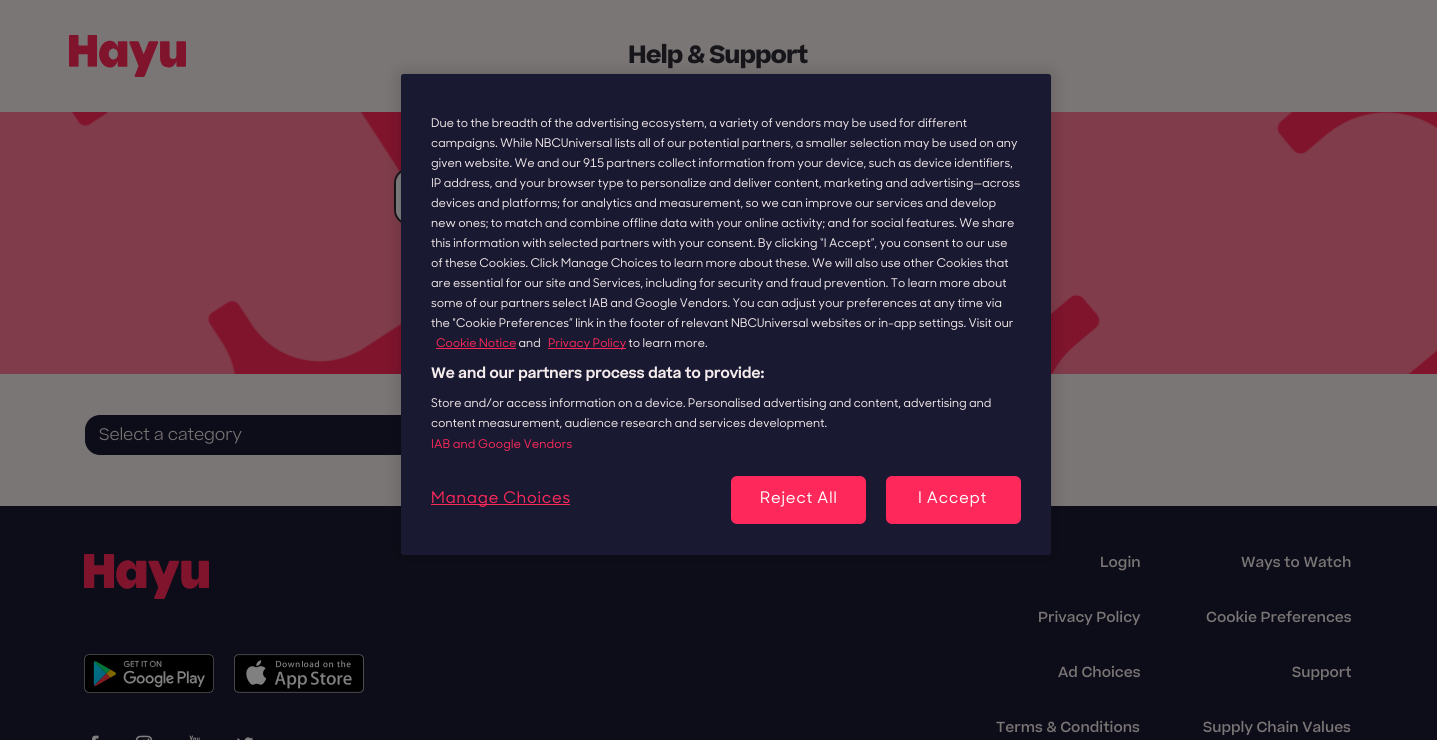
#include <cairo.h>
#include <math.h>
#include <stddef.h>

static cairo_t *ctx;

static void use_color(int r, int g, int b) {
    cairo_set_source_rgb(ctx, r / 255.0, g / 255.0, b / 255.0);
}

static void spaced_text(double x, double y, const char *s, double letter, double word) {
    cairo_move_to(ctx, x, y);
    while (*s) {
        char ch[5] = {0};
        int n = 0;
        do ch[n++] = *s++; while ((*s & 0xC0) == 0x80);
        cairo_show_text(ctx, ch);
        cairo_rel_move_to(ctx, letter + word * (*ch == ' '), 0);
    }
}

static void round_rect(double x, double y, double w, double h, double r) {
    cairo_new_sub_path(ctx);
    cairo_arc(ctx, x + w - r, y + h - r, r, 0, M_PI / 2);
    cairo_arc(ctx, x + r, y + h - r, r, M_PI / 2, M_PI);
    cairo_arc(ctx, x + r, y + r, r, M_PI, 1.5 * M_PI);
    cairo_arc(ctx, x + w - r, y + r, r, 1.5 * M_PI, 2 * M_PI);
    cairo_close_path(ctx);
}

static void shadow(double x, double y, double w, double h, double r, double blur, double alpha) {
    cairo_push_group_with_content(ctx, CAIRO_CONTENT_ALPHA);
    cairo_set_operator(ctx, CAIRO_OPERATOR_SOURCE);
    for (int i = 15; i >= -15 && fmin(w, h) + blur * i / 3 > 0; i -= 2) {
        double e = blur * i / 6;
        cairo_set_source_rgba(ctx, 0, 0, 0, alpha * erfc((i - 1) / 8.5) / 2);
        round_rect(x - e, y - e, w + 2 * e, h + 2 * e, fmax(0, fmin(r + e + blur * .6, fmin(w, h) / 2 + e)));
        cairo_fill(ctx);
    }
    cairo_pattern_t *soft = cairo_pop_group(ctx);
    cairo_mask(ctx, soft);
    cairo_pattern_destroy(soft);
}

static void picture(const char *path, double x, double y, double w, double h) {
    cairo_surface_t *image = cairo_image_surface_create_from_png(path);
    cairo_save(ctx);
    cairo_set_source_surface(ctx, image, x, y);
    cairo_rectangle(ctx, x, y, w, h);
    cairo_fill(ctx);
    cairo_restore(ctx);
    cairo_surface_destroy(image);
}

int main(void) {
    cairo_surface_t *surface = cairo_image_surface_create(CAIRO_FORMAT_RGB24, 1437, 740);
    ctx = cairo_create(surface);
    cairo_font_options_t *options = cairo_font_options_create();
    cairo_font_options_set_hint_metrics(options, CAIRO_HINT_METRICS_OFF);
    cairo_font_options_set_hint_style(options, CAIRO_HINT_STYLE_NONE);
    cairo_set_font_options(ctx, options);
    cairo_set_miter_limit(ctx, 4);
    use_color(123, 118, 118);
    cairo_paint(ctx);
    picture("img1.png", 69, 35, 117, 42);
    cairo_select_font_face(ctx, "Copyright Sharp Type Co", CAIRO_FONT_SLANT_NORMAL, CAIRO_FONT_WEIGHT_BOLD);
    cairo_set_font_size(ctx, 24);
    use_color(22, 21, 25);
    spaced_text(628, 63, "Help & Support", -1, 0);
    picture("img2.png", 0, 112, 1437, 262);
    round_rect(395, 169, 648, 55, 14);
    cairo_stroke(ctx);
    use_color(128, 128, 128);
    cairo_new_path(ctx);
    cairo_move_to(ctx, 409, 170);
    cairo_line_to(ctx, 1004, 170);
    cairo_line_to(ctx, 1004, 223);
    cairo_line_to(ctx, 409, 223);
    cairo_curve_to(ctx, 402, 223, 396, 217, 396, 210);
    cairo_line_to(ctx, 396, 183);
    cairo_curve_to(ctx, 396, 176, 402, 170, 409, 170);
    cairo_close_path(ctx);
    cairo_fill(ctx);
    use_color(13, 13, 25);
    round_rect(85, 415, 425, 40, 15);
    cairo_fill(ctx);
    cairo_select_font_face(ctx, "Copyright Sharp Type Co Light", CAIRO_FONT_SLANT_NORMAL, CAIRO_FONT_WEIGHT_NORMAL);
    cairo_set_font_size(ctx, 16);
    use_color(123, 118, 118);
    spaced_text(99, 440, "Select a category", -0.1, 0);
    use_color(13, 13, 25);
    cairo_rectangle(ctx, 0, 506, 1437, 234);
    cairo_fill(ctx);
    picture("img3.png", 84, 554, 125, 45);
    picture("img4.png", 84, 654, 130, 39);
    picture("img5.png", 234, 654, 130, 39);
    picture("img6.png", 92, 735, 7, 5);
    picture("img7.png", 135, 735, 18, 5);
    picture("img8.png", 189, 735, 11, 5);
    picture("img9.png", 237, 737, 17, 3);
    cairo_select_font_face(ctx, "Copyright Sharp Type Co Medium", CAIRO_FONT_SLANT_NORMAL, CAIRO_FONT_WEIGHT_NORMAL);
    cairo_set_font_size(ctx, 14);
    use_color(123, 118, 118);
    cairo_move_to(ctx, 1100, 567);
    cairo_show_text(ctx, "Login");
    cairo_move_to(ctx, 1038, 622);
    cairo_show_text(ctx, "Privacy Policy");
    cairo_move_to(ctx, 1058, 677);
    cairo_show_text(ctx, "Ad Choices");
    cairo_move_to(ctx, 996, 732);
    cairo_show_text(ctx, "Terms & Conditions");
    cairo_move_to(ctx, 1241, 567);
    cairo_show_text(ctx, "Ways to Watch");
    cairo_move_to(ctx, 1206, 622);
    cairo_show_text(ctx, "Cookie Preferences");
    cairo_move_to(ctx, 1292, 677);
    cairo_show_text(ctx, "Support");
    cairo_move_to(ctx, 1203, 732);
    cairo_show_text(ctx, "Supply Chain Values");
    use_color(0, 0, 0);
    shadow(401, 74, 650, 481, 2.5, 9, 0.2);
    use_color(25, 25, 50);
    round_rect(401, 74, 650, 481, 2.5);
    cairo_fill(ctx);
    picture("img10.png", 431, 118, 536, 12);
    picture("img11.png", 431, 138, 587, 12);
    picture("img12.png", 431, 158, 150, 12);
    picture("img13.png", 583, 158, 21, 10);
    picture("img14.png", 607, 158, 405, 12);
    picture("img15.png", 431, 178, 589, 12);
    picture("img16.png", 431, 198, 565, 12);
    picture("img17.png", 431, 218, 583, 12);
    picture("img18.png", 431, 238, 576, 12);
    picture("img19.png", 431, 258, 577, 12);
    picture("img20.png", 431, 278, 575, 12);
    picture("img21.png", 431, 298, 571, 12);
    picture("img22.png", 431, 318, 582, 12);
    picture("img23.png", 436, 338, 80, 10);
    use_color(255, 40, 90);
    cairo_rectangle(ctx, 436, 348, 80, 1);
    cairo_fill(ctx);
    picture("img24.png", 519, 338, 21, 10);
    cairo_rectangle(ctx, 548, 348, 78, 1);
    cairo_fill(ctx);
    picture("img25.png", 548, 338, 78, 12);
    picture("img26.png", 628, 338, 79, 10);
    cairo_select_font_face(ctx, "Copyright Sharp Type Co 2", CAIRO_FONT_SLANT_NORMAL, CAIRO_FONT_WEIGHT_BOLD);
    use_color(245, 235, 235);
    cairo_move_to(ctx, 431, 378);
    cairo_show_text(ctx, "We and our partners process data to provide:");
    picture("img27.png", 431, 398, 560, 12);
    picture("img28.png", 431, 418, 396, 12);
    picture("img29.png", 431, 439, 141, 12);
    use_color(255, 40, 90);
    cairo_rectangle(ctx, 431, 504, 139, 1);
    cairo_fill(ctx);
    picture("img30.png", 432, 491, 138, 16);
    round_rect(731, 476, 135, 48, 6);
    cairo_fill(ctx);
    picture("img31.png", 761, 491, 75, 16);
    round_rect(886, 476, 135, 48, 6);
    cairo_fill(ctx);
    picture("img32.png", 919, 491, 67, 16);
    cairo_surface_write_to_png(surface, "result.png");
    cairo_font_options_destroy(options);
    cairo_destroy(ctx);
    cairo_surface_destroy(surface);
    return 0;
}
